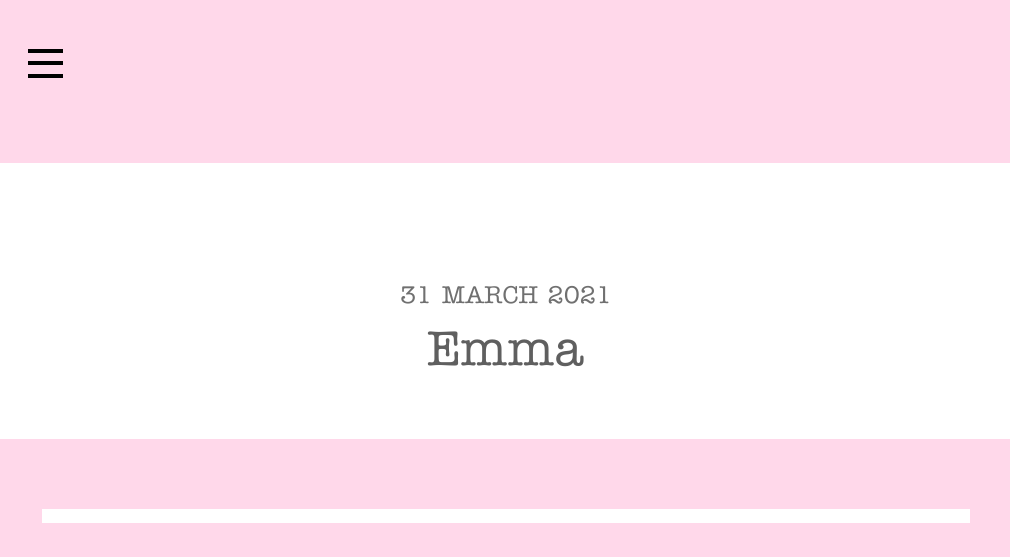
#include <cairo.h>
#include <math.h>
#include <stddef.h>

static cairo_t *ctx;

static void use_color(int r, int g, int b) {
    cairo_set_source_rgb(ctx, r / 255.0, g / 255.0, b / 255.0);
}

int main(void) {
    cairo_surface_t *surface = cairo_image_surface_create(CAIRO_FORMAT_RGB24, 1010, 557);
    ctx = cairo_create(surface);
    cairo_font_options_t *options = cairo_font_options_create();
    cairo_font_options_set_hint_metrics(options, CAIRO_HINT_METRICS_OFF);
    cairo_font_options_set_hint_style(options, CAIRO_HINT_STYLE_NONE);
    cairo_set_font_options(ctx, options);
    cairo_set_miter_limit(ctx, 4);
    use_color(255, 255, 255);
    cairo_paint(ctx);
    use_color(255, 216, 234);
    cairo_rectangle(ctx, 0, 0, 1010, 163);
    cairo_fill(ctx);
    use_color(0, 0, 0);
    cairo_rectangle(ctx, 28, 74, 35, 4);
    cairo_fill(ctx);
    cairo_rectangle(ctx, 28, 49, 35, 4);
    cairo_fill(ctx);
    cairo_rectangle(ctx, 28, 61, 35, 4);
    cairo_fill(ctx);
    cairo_select_font_face(ctx, "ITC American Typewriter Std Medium", CAIRO_FONT_SLANT_NORMAL, CAIRO_FONT_WEIGHT_NORMAL);
    cairo_set_font_size(ctx, 24.5);
    use_color(112, 112, 112);
    cairo_move_to(ctx, 400, 303);
    cairo_show_text(ctx, "31 MARCH 2021");
    cairo_set_font_size(ctx, 49);
    use_color(95, 95, 95);
    cairo_move_to(ctx, 427, 365);
    cairo_show_text(ctx, "Emma");
    use_color(255, 216, 234);
    cairo_rectangle(ctx, 0, 439, 1010, 118);
    cairo_fill(ctx);
    use_color(255, 255, 255);
    cairo_rectangle(ctx, 42, 509, 928, 14);
    cairo_fill(ctx);
    cairo_surface_write_to_png(surface, "result.png");
    cairo_font_options_destroy(options);
    cairo_destroy(ctx);
    cairo_surface_destroy(surface);
    return 0;
}
